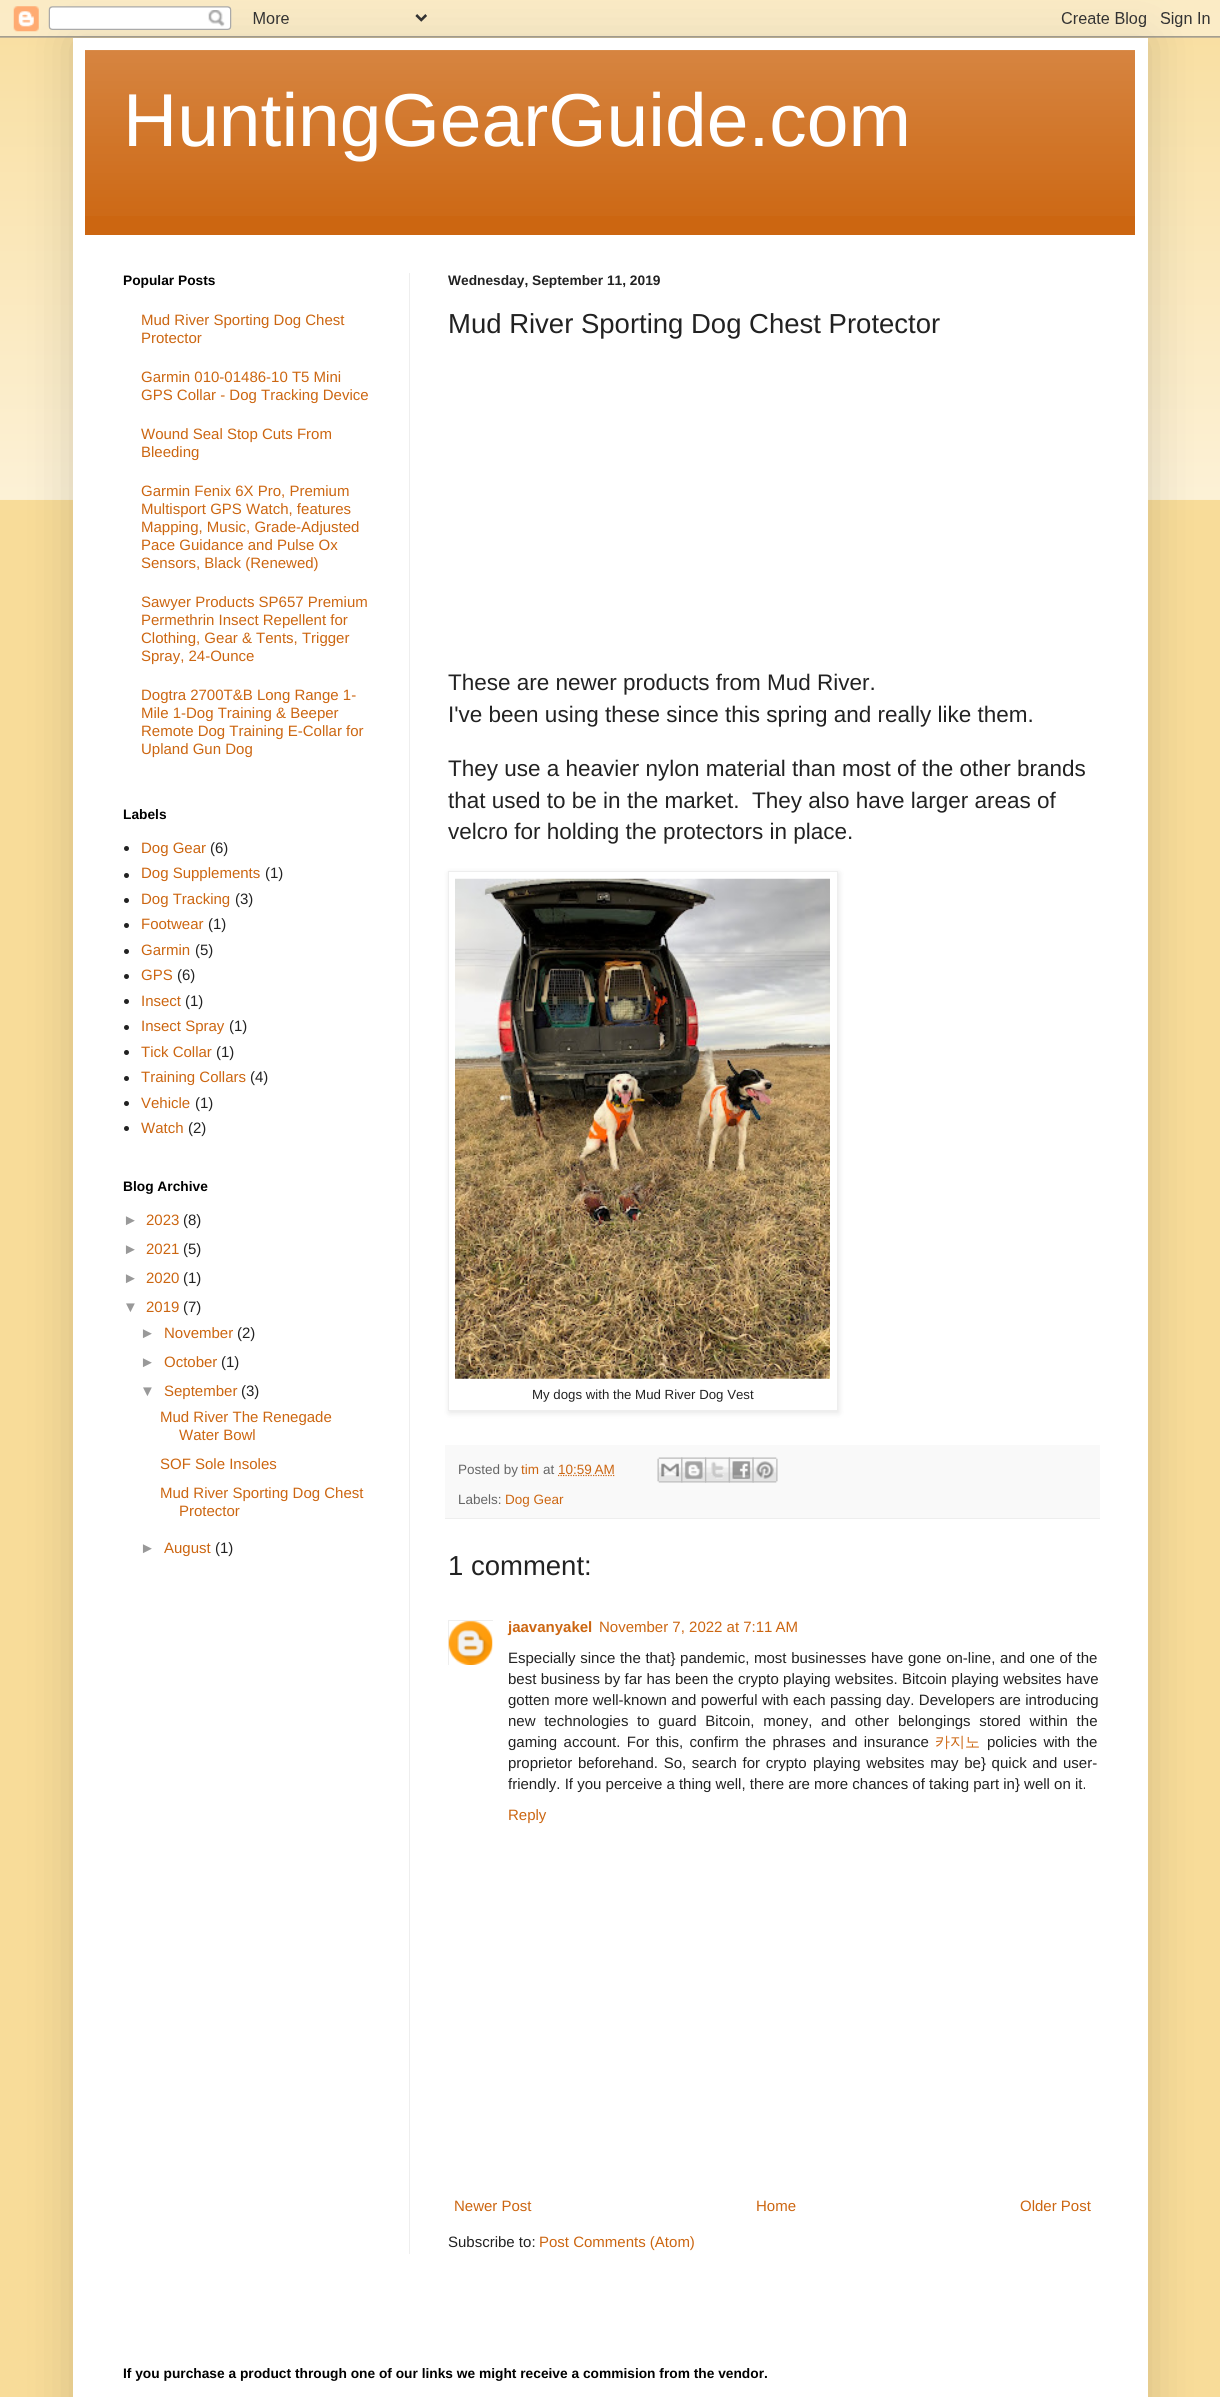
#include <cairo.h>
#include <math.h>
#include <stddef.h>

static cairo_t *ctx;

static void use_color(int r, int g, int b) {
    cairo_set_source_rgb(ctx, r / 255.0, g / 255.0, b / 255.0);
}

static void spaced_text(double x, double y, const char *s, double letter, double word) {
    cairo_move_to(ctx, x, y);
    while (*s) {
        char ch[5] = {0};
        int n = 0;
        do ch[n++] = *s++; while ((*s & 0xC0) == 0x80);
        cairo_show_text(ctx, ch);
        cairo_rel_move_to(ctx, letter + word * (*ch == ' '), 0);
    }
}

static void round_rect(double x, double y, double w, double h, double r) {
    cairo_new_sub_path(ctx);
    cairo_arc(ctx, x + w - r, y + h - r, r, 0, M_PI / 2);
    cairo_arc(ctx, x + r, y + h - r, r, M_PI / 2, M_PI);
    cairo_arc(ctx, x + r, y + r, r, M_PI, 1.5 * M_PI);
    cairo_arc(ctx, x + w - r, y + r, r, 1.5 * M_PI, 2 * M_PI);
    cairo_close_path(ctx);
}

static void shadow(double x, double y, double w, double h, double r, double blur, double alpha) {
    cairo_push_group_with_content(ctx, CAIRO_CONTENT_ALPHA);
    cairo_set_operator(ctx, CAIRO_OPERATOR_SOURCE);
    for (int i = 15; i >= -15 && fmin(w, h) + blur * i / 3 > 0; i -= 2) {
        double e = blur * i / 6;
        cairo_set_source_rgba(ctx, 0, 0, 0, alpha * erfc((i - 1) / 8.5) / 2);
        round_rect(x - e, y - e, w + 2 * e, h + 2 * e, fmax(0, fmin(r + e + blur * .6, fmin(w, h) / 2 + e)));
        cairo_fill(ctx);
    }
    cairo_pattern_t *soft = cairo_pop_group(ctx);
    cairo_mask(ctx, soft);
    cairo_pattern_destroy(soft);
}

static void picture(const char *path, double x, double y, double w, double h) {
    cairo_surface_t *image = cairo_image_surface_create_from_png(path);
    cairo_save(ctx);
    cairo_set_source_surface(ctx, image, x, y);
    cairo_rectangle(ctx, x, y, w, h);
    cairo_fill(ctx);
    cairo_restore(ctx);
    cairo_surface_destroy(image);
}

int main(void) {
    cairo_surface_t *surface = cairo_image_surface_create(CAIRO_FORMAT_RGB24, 1220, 2397);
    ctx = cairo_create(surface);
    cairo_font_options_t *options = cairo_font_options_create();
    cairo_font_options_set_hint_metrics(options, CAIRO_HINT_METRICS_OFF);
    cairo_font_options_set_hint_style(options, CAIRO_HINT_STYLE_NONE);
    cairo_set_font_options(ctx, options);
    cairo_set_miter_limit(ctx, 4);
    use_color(248, 220, 153);
    cairo_paint(ctx);
    picture("img1.png", 0, 0, 1220, 500);
    use_color(0, 0, 0);
    shadow(73, 38, 1075, 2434, 0, 25, 0.15);
    picture("img2.png", 0, 0, 1220, 38);
    use_color(255, 255, 255);
    cairo_rectangle(ctx, 73, 38, 1075, 2359);
    cairo_fill(ctx);
    use_color(204, 102, 17);
    cairo_rectangle(ctx, 85, 50, 1050, 185);
    cairo_fill(ctx);
    picture("img3.png", 85, 50, 1050, 166);
    cairo_select_font_face(ctx, "Liberation Sans", CAIRO_FONT_SLANT_NORMAL, CAIRO_FONT_WEIGHT_NORMAL);
    cairo_set_font_size(ctx, 75);
    use_color(255, 255, 255);
    cairo_move_to(ctx, 123, 146);
    cairo_show_text(ctx, "HuntingGearGuide.com");
    use_color(238, 238, 238);
    cairo_rectangle(ctx, 409, 273, 1, 1981);
    cairo_fill(ctx);
    cairo_select_font_face(ctx, "Liberation Sans", CAIRO_FONT_SLANT_NORMAL, CAIRO_FONT_WEIGHT_BOLD);
    cairo_set_font_size(ctx, 13.75);
    use_color(0, 0, 0);
    cairo_move_to(ctx, 123, 285);
    cairo_show_text(ctx, "Popular Posts");
    cairo_select_font_face(ctx, "Liberation Sans", CAIRO_FONT_SLANT_NORMAL, CAIRO_FONT_WEIGHT_NORMAL);
    cairo_set_font_size(ctx, 15);
    use_color(204, 102, 17);
    cairo_move_to(ctx, 141, 325);
    cairo_show_text(ctx, "Mud River Sporting Dog Chest");
    cairo_move_to(ctx, 141, 343);
    cairo_show_text(ctx, "Protector");
    cairo_move_to(ctx, 141, 382);
    cairo_show_text(ctx, "Garmin 010-01486-10 T5 Mini");
    cairo_move_to(ctx, 141, 400);
    cairo_show_text(ctx, "GPS Collar - Dog Tracking Device");
    cairo_move_to(ctx, 141, 439);
    cairo_show_text(ctx, "Wound Seal Stop Cuts From");
    cairo_move_to(ctx, 141, 457);
    cairo_show_text(ctx, "Bleeding");
    cairo_move_to(ctx, 141, 496);
    cairo_show_text(ctx, "Garmin Fenix 6X Pro, Premium");
    cairo_move_to(ctx, 141, 514);
    cairo_show_text(ctx, "Multisport GPS Watch, features");
    cairo_move_to(ctx, 141, 532);
    cairo_show_text(ctx, "Mapping, Music, Grade-Adjusted");
    cairo_move_to(ctx, 141, 550);
    cairo_show_text(ctx, "Pace Guidance and Pulse Ox");
    cairo_move_to(ctx, 141, 568);
    cairo_show_text(ctx, "Sensors, Black (Renewed)");
    cairo_move_to(ctx, 141, 607);
    cairo_show_text(ctx, "Sawyer Products SP657 Premium");
    cairo_move_to(ctx, 141, 625);
    cairo_show_text(ctx, "Permethrin Insect Repellent for");
    cairo_move_to(ctx, 141, 643);
    cairo_show_text(ctx, "Clothing, Gear & Tents, Trigger");
    cairo_move_to(ctx, 141, 661);
    cairo_show_text(ctx, "Spray, 24-Ounce");
    cairo_move_to(ctx, 141, 700);
    cairo_show_text(ctx, "Dogtra 2700T&B Long Range 1-");
    cairo_move_to(ctx, 141, 718);
    cairo_show_text(ctx, "Mile 1-Dog Training & Beeper");
    cairo_move_to(ctx, 141, 736);
    cairo_show_text(ctx, "Remote Dog Training E-Collar for");
    cairo_move_to(ctx, 141, 754);
    cairo_show_text(ctx, "Upland Gun Dog");
    cairo_select_font_face(ctx, "Liberation Sans", CAIRO_FONT_SLANT_NORMAL, CAIRO_FONT_WEIGHT_BOLD);
    cairo_set_font_size(ctx, 13.75);
    use_color(0, 0, 0);
    cairo_move_to(ctx, 123, 819);
    cairo_show_text(ctx, "Labels");
    use_color(34, 34, 34);
    cairo_new_path(ctx);
    cairo_arc(ctx, 126.5, 848.5, 2.5, 0, 2 * M_PI);
    cairo_fill(ctx);
    cairo_select_font_face(ctx, "Liberation Sans", CAIRO_FONT_SLANT_NORMAL, CAIRO_FONT_WEIGHT_NORMAL);
    cairo_set_font_size(ctx, 15);
    use_color(204, 102, 17);
    cairo_move_to(ctx, 141, 853);
    cairo_show_text(ctx, "Dog Gear");
    use_color(34, 34, 34);
    cairo_move_to(ctx, 210, 853);
    cairo_show_text(ctx, "(6)");
    cairo_new_path(ctx);
    cairo_arc(ctx, 126.5, 875.5, 2.5, 0, 2 * M_PI);
    cairo_fill(ctx);
    use_color(204, 102, 17);
    cairo_move_to(ctx, 141, 878);
    cairo_show_text(ctx, "Dog Supplements");
    use_color(34, 34, 34);
    cairo_move_to(ctx, 265, 878);
    cairo_show_text(ctx, "(1)");
    cairo_new_path(ctx);
    cairo_arc(ctx, 126.5, 900.5, 2.5, 0, 2 * M_PI);
    cairo_fill(ctx);
    use_color(204, 102, 17);
    cairo_move_to(ctx, 141, 904);
    cairo_show_text(ctx, "Dog Tracking");
    use_color(34, 34, 34);
    cairo_move_to(ctx, 235, 904);
    cairo_show_text(ctx, "(3)");
    cairo_new_path(ctx);
    cairo_arc(ctx, 126.5, 925.5, 2.5, 0, 2 * M_PI);
    cairo_fill(ctx);
    use_color(204, 102, 17);
    cairo_move_to(ctx, 141, 929);
    cairo_show_text(ctx, "Footwear");
    use_color(34, 34, 34);
    cairo_move_to(ctx, 208, 929);
    cairo_show_text(ctx, "(1)");
    cairo_new_path(ctx);
    cairo_arc(ctx, 126.5, 951.5, 2.5, 0, 2 * M_PI);
    cairo_fill(ctx);
    use_color(204, 102, 17);
    cairo_move_to(ctx, 141, 955);
    cairo_show_text(ctx, "Garmin");
    use_color(34, 34, 34);
    cairo_move_to(ctx, 195, 955);
    cairo_show_text(ctx, "(5)");
    cairo_new_path(ctx);
    cairo_arc(ctx, 126.5, 976.5, 2.5, 0, 2 * M_PI);
    cairo_fill(ctx);
    use_color(204, 102, 17);
    cairo_move_to(ctx, 141, 980);
    cairo_show_text(ctx, "GPS");
    use_color(34, 34, 34);
    cairo_move_to(ctx, 177, 980);
    cairo_show_text(ctx, "(6)");
    cairo_new_path(ctx);
    cairo_arc(ctx, 126.5, 1001.5, 2.5, 0, 2 * M_PI);
    cairo_fill(ctx);
    use_color(204, 102, 17);
    cairo_move_to(ctx, 141, 1006);
    cairo_show_text(ctx, "Insect");
    use_color(34, 34, 34);
    cairo_move_to(ctx, 185, 1006);
    cairo_show_text(ctx, "(1)");
    cairo_new_path(ctx);
    cairo_arc(ctx, 126.5, 1027.5, 2.5, 0, 2 * M_PI);
    cairo_fill(ctx);
    use_color(204, 102, 17);
    cairo_move_to(ctx, 141, 1031);
    cairo_show_text(ctx, "Insect Spray");
    use_color(34, 34, 34);
    cairo_move_to(ctx, 229, 1031);
    cairo_show_text(ctx, "(1)");
    cairo_new_path(ctx);
    cairo_arc(ctx, 126.5, 1052.5, 2.5, 0, 2 * M_PI);
    cairo_fill(ctx);
    use_color(204, 102, 17);
    cairo_move_to(ctx, 141, 1057);
    cairo_show_text(ctx, "Tick Collar");
    use_color(34, 34, 34);
    cairo_move_to(ctx, 216, 1057);
    cairo_show_text(ctx, "(1)");
    cairo_new_path(ctx);
    cairo_arc(ctx, 126.5, 1078.5, 2.5, 0, 2 * M_PI);
    cairo_fill(ctx);
    use_color(204, 102, 17);
    cairo_move_to(ctx, 141, 1082);
    cairo_show_text(ctx, "Training Collars");
    use_color(34, 34, 34);
    cairo_move_to(ctx, 250, 1082);
    cairo_show_text(ctx, "(4)");
    cairo_new_path(ctx);
    cairo_arc(ctx, 126.5, 1103.5, 2.5, 0, 2 * M_PI);
    cairo_fill(ctx);
    use_color(204, 102, 17);
    cairo_move_to(ctx, 141, 1108);
    cairo_show_text(ctx, "Vehicle");
    use_color(34, 34, 34);
    cairo_move_to(ctx, 195, 1108);
    cairo_show_text(ctx, "(1)");
    cairo_new_path(ctx);
    cairo_arc(ctx, 126.5, 1128.5, 2.5, 0, 2 * M_PI);
    cairo_fill(ctx);
    use_color(204, 102, 17);
    cairo_move_to(ctx, 141, 1133);
    cairo_show_text(ctx, "Watch");
    use_color(34, 34, 34);
    cairo_move_to(ctx, 188, 1133);
    cairo_show_text(ctx, "(2)");
    cairo_select_font_face(ctx, "Liberation Sans", CAIRO_FONT_SLANT_NORMAL, CAIRO_FONT_WEIGHT_BOLD);
    cairo_set_font_size(ctx, 13.75);
    use_color(0, 0, 0);
    cairo_move_to(ctx, 123, 1191);
    cairo_show_text(ctx, "Blog Archive");
    cairo_select_font_face(ctx, "Liberation Sans", CAIRO_FONT_SLANT_NORMAL, CAIRO_FONT_WEIGHT_NORMAL);
    cairo_set_font_size(ctx, 15);
    use_color(153, 153, 153);
    cairo_move_to(ctx, 123, 1225);
    cairo_show_text(ctx, "►");
    use_color(204, 102, 17);
    cairo_move_to(ctx, 146, 1225);
    cairo_show_text(ctx, "2023");
    use_color(34, 34, 34);
    cairo_move_to(ctx, 183, 1225);
    cairo_show_text(ctx, "(8)");
    use_color(153, 153, 153);
    cairo_move_to(ctx, 123, 1254);
    cairo_show_text(ctx, "►");
    use_color(204, 102, 17);
    cairo_move_to(ctx, 146, 1254);
    cairo_show_text(ctx, "2021");
    use_color(34, 34, 34);
    cairo_move_to(ctx, 183, 1254);
    cairo_show_text(ctx, "(5)");
    use_color(153, 153, 153);
    cairo_move_to(ctx, 123, 1283);
    cairo_show_text(ctx, "►");
    use_color(204, 102, 17);
    cairo_move_to(ctx, 146, 1283);
    cairo_show_text(ctx, "2020");
    use_color(34, 34, 34);
    cairo_move_to(ctx, 183, 1283);
    cairo_show_text(ctx, "(1)");
    use_color(153, 153, 153);
    cairo_move_to(ctx, 123, 1312);
    cairo_show_text(ctx, "▼");
    use_color(204, 102, 17);
    cairo_move_to(ctx, 146, 1312);
    cairo_show_text(ctx, "2019");
    use_color(34, 34, 34);
    cairo_move_to(ctx, 183, 1312);
    cairo_show_text(ctx, "(7)");
    use_color(153, 153, 153);
    cairo_move_to(ctx, 140, 1338);
    cairo_show_text(ctx, "►");
    use_color(204, 102, 17);
    cairo_move_to(ctx, 164, 1338);
    cairo_show_text(ctx, "November");
    use_color(34, 34, 34);
    cairo_move_to(ctx, 237, 1338);
    cairo_show_text(ctx, "(2)");
    use_color(153, 153, 153);
    cairo_move_to(ctx, 140, 1367);
    cairo_show_text(ctx, "►");
    use_color(204, 102, 17);
    cairo_move_to(ctx, 164, 1367);
    cairo_show_text(ctx, "October");
    use_color(34, 34, 34);
    cairo_move_to(ctx, 221, 1367);
    cairo_show_text(ctx, "(1)");
    use_color(153, 153, 153);
    cairo_move_to(ctx, 140, 1396);
    cairo_show_text(ctx, "▼");
    use_color(204, 102, 17);
    cairo_move_to(ctx, 164, 1396);
    cairo_show_text(ctx, "September");
    use_color(34, 34, 34);
    cairo_move_to(ctx, 241, 1396);
    cairo_show_text(ctx, "(3)");
    use_color(204, 102, 17);
    cairo_move_to(ctx, 160, 1422);
    cairo_show_text(ctx, "Mud River The Renegade");
    cairo_move_to(ctx, 179, 1440);
    cairo_show_text(ctx, "Water Bowl");
    cairo_move_to(ctx, 160, 1469);
    cairo_show_text(ctx, "SOF Sole Insoles");
    cairo_move_to(ctx, 160, 1498);
    cairo_show_text(ctx, "Mud River Sporting Dog Chest");
    cairo_move_to(ctx, 179, 1516);
    cairo_show_text(ctx, "Protector");
    use_color(153, 153, 153);
    cairo_move_to(ctx, 140, 1553);
    cairo_show_text(ctx, "►");
    use_color(204, 102, 17);
    cairo_move_to(ctx, 164, 1553);
    cairo_show_text(ctx, "August");
    use_color(34, 34, 34);
    cairo_move_to(ctx, 215, 1553);
    cairo_show_text(ctx, "(1)");
    cairo_select_font_face(ctx, "Liberation Sans", CAIRO_FONT_SLANT_NORMAL, CAIRO_FONT_WEIGHT_BOLD);
    cairo_set_font_size(ctx, 13.75);
    cairo_move_to(ctx, 448, 285);
    cairo_show_text(ctx, "Wednesday, September 11, 2019");
    cairo_select_font_face(ctx, "Liberation Sans", CAIRO_FONT_SLANT_NORMAL, CAIRO_FONT_WEIGHT_NORMAL);
    cairo_set_font_size(ctx, 27.5);
    cairo_move_to(ctx, 448, 333);
    cairo_show_text(ctx, "Mud River Sporting Dog Chest Protector");
    cairo_set_font_size(ctx, 22.5);
    cairo_move_to(ctx, 448, 690);
    cairo_show_text(ctx, "These are newer products from Mud River.");
    cairo_move_to(ctx, 448, 722);
    cairo_show_text(ctx, "I've been using these since this spring and really like them.");
    cairo_move_to(ctx, 448, 776);
    cairo_show_text(ctx, "They use a heavier nylon material than most of the other brands");
    cairo_move_to(ctx, 448, 808);
    cairo_show_text(ctx, "that used to be in the market.  They also have larger areas of");
    cairo_move_to(ctx, 448, 839);
    cairo_show_text(ctx, "velcro for holding the protectors in place.");
    use_color(0, 0, 0);
    shadow(449, 873, 390, 540, 0, 3, 0.1);
    use_color(255, 255, 255);
    cairo_rectangle(ctx, 448.5, 871.5, 389, 539);
    cairo_fill_preserve(ctx);
    use_color(238, 238, 238);
    cairo_set_line_width(ctx, 1);
    cairo_stroke(ctx);
    picture("img4.png", 455, 878, 375, 501);
    cairo_set_font_size(ctx, 13.25);
    use_color(34, 34, 34);
    cairo_move_to(ctx, 532, 1399);
    cairo_show_text(ctx, "My dogs with the Mud River Dog Vest");
    use_color(249, 249, 249);
    cairo_rectangle(ctx, 445, 1445, 655, 73);
    cairo_fill(ctx);
    use_color(238, 238, 238);
    cairo_rectangle(ctx, 445, 1518, 655, 1);
    cairo_fill(ctx);
    cairo_set_font_size(ctx, 13.5);
    use_color(102, 102, 102);
    cairo_move_to(ctx, 458, 1474);
    cairo_show_text(ctx, "Posted by");
    use_color(204, 102, 17);
    cairo_move_to(ctx, 521, 1474);
    cairo_show_text(ctx, "tim");
    use_color(102, 102, 102);
    cairo_move_to(ctx, 543, 1474);
    cairo_show_text(ctx, "at");
    cairo_new_path(ctx);
    cairo_move_to(ctx, 558, 1475.5);
    cairo_line_to(ctx, 615, 1475.5);
    use_color(204, 102, 17);
    cairo_set_line_width(ctx, 1.2);
    cairo_set_dash(ctx, (double[]){1.25, 1.25}, 2, 0);
    cairo_stroke(ctx);
    cairo_move_to(ctx, 558, 1474);
    cairo_show_text(ctx, "10:59 AM");
    picture("img5.png", 657, 1457, 26, 26);
    picture("img6.png", 681, 1457, 26, 26);
    picture("img7.png", 705, 1457, 25, 26);
    picture("img8.png", 728, 1457, 26, 26);
    picture("img9.png", 752, 1457, 26, 26);
    use_color(102, 102, 102);
    cairo_move_to(ctx, 458, 1504);
    cairo_show_text(ctx, "Labels:");
    use_color(204, 102, 17);
    cairo_move_to(ctx, 505, 1504);
    cairo_show_text(ctx, "Dog Gear");
    cairo_set_font_size(ctx, 27.5);
    use_color(34, 34, 34);
    cairo_move_to(ctx, 448, 1575);
    cairo_show_text(ctx, "1 comment:");
    cairo_save(ctx);
    cairo_rectangle(ctx, 448, 1620, 45, 45);
    cairo_clip(ctx);
    cairo_rectangle(ctx, 448.5, 1620.5, 45, 45);
    use_color(238, 238, 238);
    cairo_set_line_width(ctx, 1);
    cairo_set_dash(ctx, NULL, 0, 0);
    cairo_stroke(ctx);
    cairo_restore(ctx);
    picture("img10.png", 448, 1621, 45, 44);
    cairo_select_font_face(ctx, "Liberation Sans", CAIRO_FONT_SLANT_NORMAL, CAIRO_FONT_WEIGHT_BOLD);
    cairo_set_font_size(ctx, 15);
    use_color(204, 102, 17);
    cairo_move_to(ctx, 508, 1632);
    cairo_show_text(ctx, "jaavanyakel");
    cairo_select_font_face(ctx, "Liberation Sans", CAIRO_FONT_SLANT_NORMAL, CAIRO_FONT_WEIGHT_NORMAL);
    cairo_move_to(ctx, 599, 1632);
    cairo_show_text(ctx, "November 7, 2022 at 7:11 AM");
    use_color(34, 34, 34);
    spaced_text(508, 1663, "Especially since the that} pandemic, most businesses have gone on-line, and one of the", 0, 0.5);
    spaced_text(508, 1684, "best business by far has been the crypto playing websites. Bitcoin playing websites have", 0, 0.2);
    spaced_text(508, 1705, "gotten more well-known and powerful with each passing day. Developers are introducing", 0, 0.25);
    spaced_text(508, 1726, "new technologies to guard Bitcoin, money, and other", 0, 4.5);
    spaced_text(898, 1726, "belongings stored within the", 0, 4.5);
    spaced_text(508, 1747, "gaming account. For this, confirm the phrases and insurance", 0, 2.25);
    cairo_select_font_face(ctx, "WenQuanYi Zen Hei Medium", CAIRO_FONT_SLANT_NORMAL, CAIRO_FONT_WEIGHT_NORMAL);
    use_color(204, 102, 17);
    cairo_move_to(ctx, 935, 1747);
    cairo_show_text(ctx, "카지노");
    cairo_select_font_face(ctx, "Liberation Sans", CAIRO_FONT_SLANT_NORMAL, CAIRO_FONT_WEIGHT_NORMAL);
    use_color(34, 34, 34);
    spaced_text(987, 1747, "policies with the", 0, 2.25);
    spaced_text(508, 1768, "proprietor beforehand. So, search for crypto", 0, 1.5);
    spaced_text(813, 1768, "playing websites may be} quick and user-", 0, 1.5);
    cairo_move_to(ctx, 508, 1789);
    cairo_show_text(ctx, "friendly. If you perceive a thing well, there are more chances of taking part in} well on it.");
    use_color(204, 102, 17);
    cairo_move_to(ctx, 508, 1820);
    cairo_show_text(ctx, "Reply");
    cairo_move_to(ctx, 454, 2211);
    cairo_show_text(ctx, "Newer Post");
    cairo_move_to(ctx, 756, 2211);
    cairo_show_text(ctx, "Home");
    cairo_move_to(ctx, 1020, 2211);
    cairo_show_text(ctx, "Older Post");
    use_color(34, 34, 34);
    cairo_move_to(ctx, 448, 2247);
    cairo_show_text(ctx, "Subscribe to:");
    use_color(204, 102, 17);
    cairo_move_to(ctx, 539, 2247);
    cairo_show_text(ctx, "Post Comments (Atom)");
    cairo_select_font_face(ctx, "Liberation Sans", CAIRO_FONT_SLANT_NORMAL, CAIRO_FONT_WEIGHT_BOLD);
    cairo_set_font_size(ctx, 13.75);
    use_color(0, 0, 0);
    cairo_move_to(ctx, 123, 2378);
    cairo_show_text(ctx, "If you purchase a product through one of our links we might receive a commision from the vendor.");
    cairo_surface_write_to_png(surface, "result.png");
    cairo_font_options_destroy(options);
    cairo_destroy(ctx);
    cairo_surface_destroy(surface);
    return 0;
}
